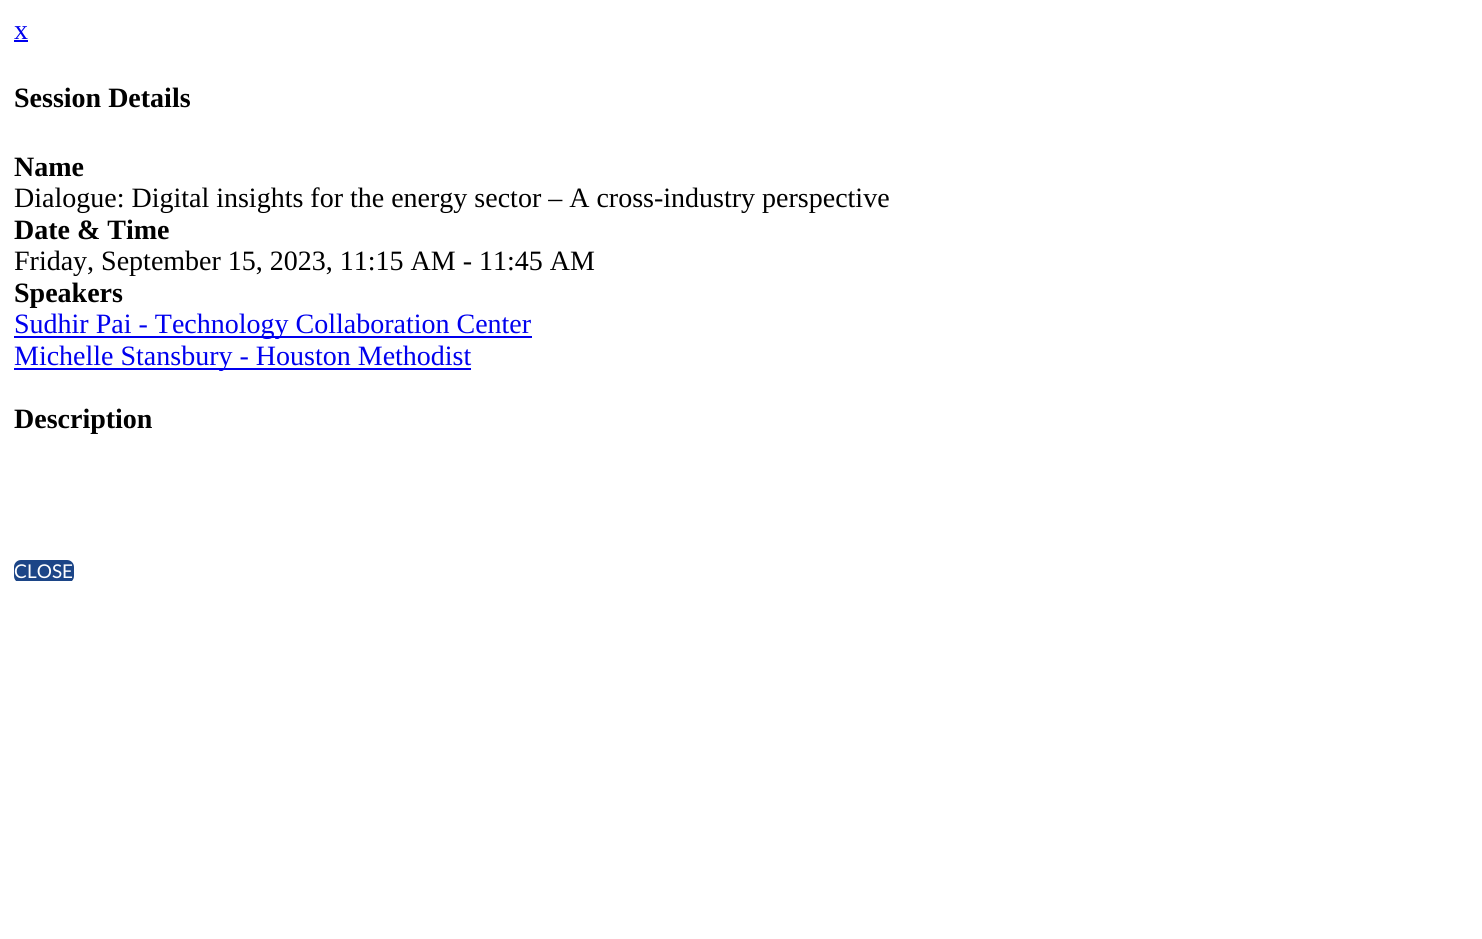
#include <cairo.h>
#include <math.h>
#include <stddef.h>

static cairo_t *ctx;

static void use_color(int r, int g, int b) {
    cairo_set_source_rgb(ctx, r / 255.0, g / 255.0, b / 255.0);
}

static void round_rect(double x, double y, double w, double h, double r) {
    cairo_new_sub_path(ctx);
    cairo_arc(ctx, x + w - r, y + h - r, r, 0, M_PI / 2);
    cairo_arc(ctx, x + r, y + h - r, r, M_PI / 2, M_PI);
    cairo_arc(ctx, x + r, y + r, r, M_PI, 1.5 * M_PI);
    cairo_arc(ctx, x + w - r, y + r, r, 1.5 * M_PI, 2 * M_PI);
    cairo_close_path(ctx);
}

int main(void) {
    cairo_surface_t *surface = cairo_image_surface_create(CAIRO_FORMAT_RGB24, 1482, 939);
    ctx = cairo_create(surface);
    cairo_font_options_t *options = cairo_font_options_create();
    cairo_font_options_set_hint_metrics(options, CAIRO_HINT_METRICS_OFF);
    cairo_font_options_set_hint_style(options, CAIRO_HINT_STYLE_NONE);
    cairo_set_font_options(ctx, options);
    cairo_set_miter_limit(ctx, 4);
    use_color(255, 255, 255);
    cairo_paint(ctx);
    cairo_select_font_face(ctx, "Liberation Serif", CAIRO_FONT_SLANT_NORMAL, CAIRO_FONT_WEIGHT_NORMAL);
    cairo_set_font_size(ctx, 28);
    use_color(0, 0, 238);
    cairo_move_to(ctx, 14, 39);
    cairo_show_text(ctx, "x");
    cairo_rectangle(ctx, 14, 40, 14, 2);
    cairo_fill(ctx);
    cairo_select_font_face(ctx, "Liberation Serif", CAIRO_FONT_SLANT_NORMAL, CAIRO_FONT_WEIGHT_BOLD);
    use_color(0, 0, 0);
    cairo_move_to(ctx, 14, 107);
    cairo_show_text(ctx, "Session Details");
    cairo_move_to(ctx, 14, 176);
    cairo_show_text(ctx, "Name");
    cairo_select_font_face(ctx, "Liberation Serif", CAIRO_FONT_SLANT_NORMAL, CAIRO_FONT_WEIGHT_NORMAL);
    cairo_move_to(ctx, 14, 207);
    cairo_show_text(ctx, "Dialogue: Digital insights for the energy sector – A cross-industry perspective");
    cairo_select_font_face(ctx, "Liberation Serif", CAIRO_FONT_SLANT_NORMAL, CAIRO_FONT_WEIGHT_BOLD);
    cairo_move_to(ctx, 14, 239);
    cairo_show_text(ctx, "Date & Time");
    cairo_select_font_face(ctx, "Liberation Serif", CAIRO_FONT_SLANT_NORMAL, CAIRO_FONT_WEIGHT_NORMAL);
    cairo_move_to(ctx, 14, 270);
    cairo_show_text(ctx, "Friday, September 15, 2023, 11:15 AM - 11:45 AM");
    cairo_select_font_face(ctx, "Liberation Serif", CAIRO_FONT_SLANT_NORMAL, CAIRO_FONT_WEIGHT_BOLD);
    cairo_move_to(ctx, 14, 302);
    cairo_show_text(ctx, "Speakers");
    use_color(0, 0, 238);
    cairo_rectangle(ctx, 14, 336, 518, 2);
    cairo_fill(ctx);
    cairo_select_font_face(ctx, "Liberation Serif", CAIRO_FONT_SLANT_NORMAL, CAIRO_FONT_WEIGHT_NORMAL);
    cairo_move_to(ctx, 14, 333);
    cairo_show_text(ctx, "Sudhir Pai - Technology Collaboration Center");
    cairo_rectangle(ctx, 14, 368, 457, 2);
    cairo_fill(ctx);
    cairo_move_to(ctx, 14, 365);
    cairo_show_text(ctx, "Michelle Stansbury - Houston Methodist");
    cairo_select_font_face(ctx, "Liberation Serif", CAIRO_FONT_SLANT_NORMAL, CAIRO_FONT_WEIGHT_BOLD);
    use_color(0, 0, 0);
    cairo_move_to(ctx, 14, 428);
    cairo_show_text(ctx, "Description");
    use_color(28, 69, 135);
    round_rect(14, 560, 60, 23, 7);
    cairo_fill(ctx);
    cairo_select_font_face(ctx, "Lato", CAIRO_FONT_SLANT_NORMAL, CAIRO_FONT_WEIGHT_NORMAL);
    cairo_set_font_size(ctx, 19);
    use_color(255, 255, 255);
    cairo_move_to(ctx, 14, 578);
    cairo_show_text(ctx, "CLOSE");
    cairo_rectangle(ctx, 14, 581, 60, 2);
    cairo_fill(ctx);
    cairo_surface_write_to_png(surface, "result.png");
    cairo_font_options_destroy(options);
    cairo_destroy(ctx);
    cairo_surface_destroy(surface);
    return 0;
}
